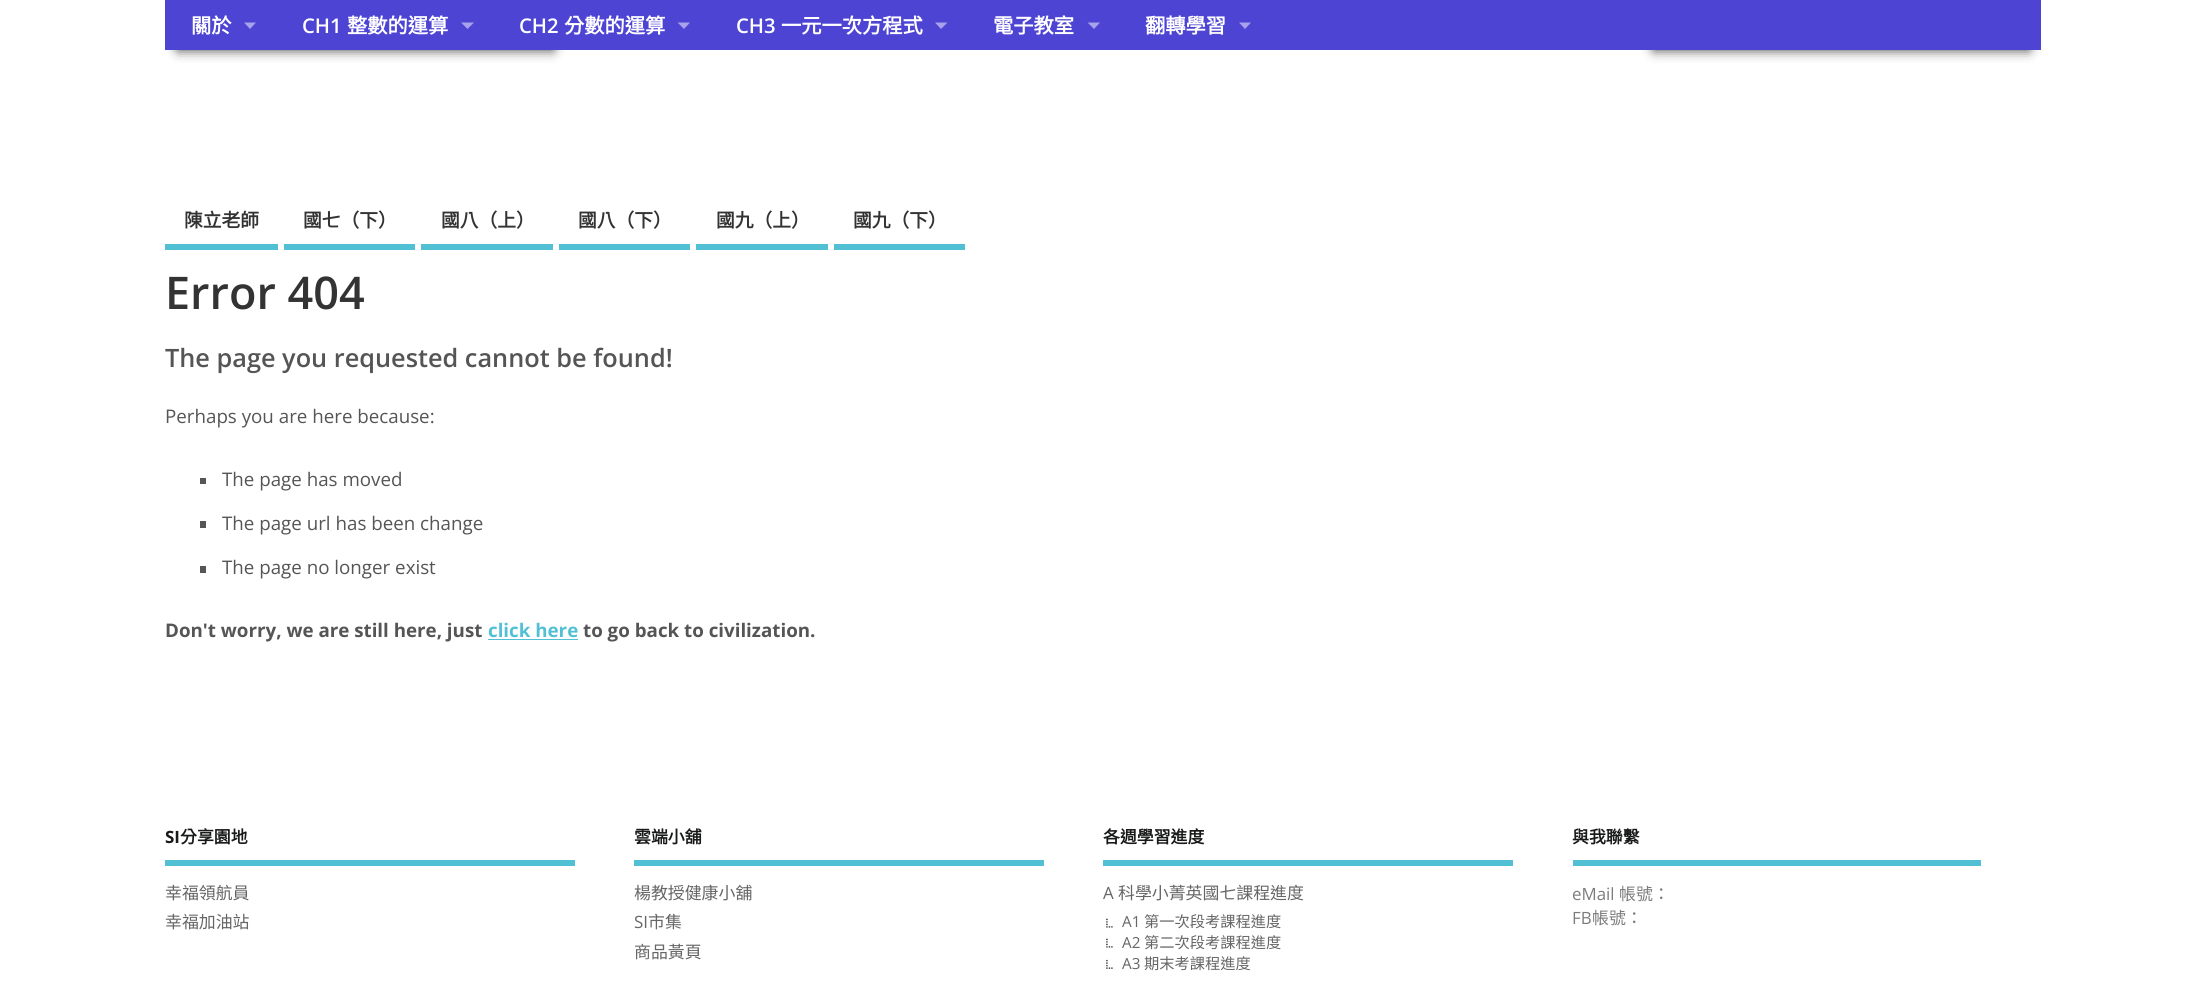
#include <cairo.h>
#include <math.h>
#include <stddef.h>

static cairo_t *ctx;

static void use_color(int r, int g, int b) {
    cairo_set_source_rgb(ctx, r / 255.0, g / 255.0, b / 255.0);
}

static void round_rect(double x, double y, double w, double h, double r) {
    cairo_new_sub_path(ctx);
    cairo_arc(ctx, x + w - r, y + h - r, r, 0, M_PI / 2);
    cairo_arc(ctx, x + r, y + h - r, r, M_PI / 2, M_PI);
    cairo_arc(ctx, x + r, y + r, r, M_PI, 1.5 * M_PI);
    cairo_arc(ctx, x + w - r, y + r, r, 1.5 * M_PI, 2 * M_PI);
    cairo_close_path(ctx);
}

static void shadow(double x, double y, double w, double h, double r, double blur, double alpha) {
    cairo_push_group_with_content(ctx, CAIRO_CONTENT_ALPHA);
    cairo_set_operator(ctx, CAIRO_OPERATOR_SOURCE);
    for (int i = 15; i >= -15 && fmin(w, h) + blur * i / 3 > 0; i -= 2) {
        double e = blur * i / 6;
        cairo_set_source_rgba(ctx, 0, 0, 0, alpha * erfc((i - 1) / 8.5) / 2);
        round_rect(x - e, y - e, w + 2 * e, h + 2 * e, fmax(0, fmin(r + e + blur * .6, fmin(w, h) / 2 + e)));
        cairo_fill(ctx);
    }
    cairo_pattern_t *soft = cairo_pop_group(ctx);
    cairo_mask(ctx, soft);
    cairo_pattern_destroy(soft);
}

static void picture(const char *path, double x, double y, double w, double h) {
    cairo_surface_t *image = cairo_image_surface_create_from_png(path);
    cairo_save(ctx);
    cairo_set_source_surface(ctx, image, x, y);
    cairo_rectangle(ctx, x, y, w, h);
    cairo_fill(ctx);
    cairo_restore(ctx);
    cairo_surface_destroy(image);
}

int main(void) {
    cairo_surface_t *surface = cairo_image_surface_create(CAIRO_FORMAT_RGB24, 2206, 997);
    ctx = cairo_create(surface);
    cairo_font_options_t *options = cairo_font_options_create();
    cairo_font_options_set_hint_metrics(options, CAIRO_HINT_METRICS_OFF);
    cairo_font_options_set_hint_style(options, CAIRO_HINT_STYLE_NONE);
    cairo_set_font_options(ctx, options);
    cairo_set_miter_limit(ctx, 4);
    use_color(255, 255, 255);
    cairo_paint(ctx);
    use_color(0, 0, 0);
    shadow(178, 40, 375, 10, 0, 6, 0.75);
    shadow(1654, 40, 375, 10, 0, 6, 0.75);
    use_color(78, 68, 212);
    cairo_rectangle(ctx, 165, 0, 1876, 50);
    cairo_fill(ctx);
    cairo_select_font_face(ctx, "Noto Sans CJK TC", CAIRO_FONT_SLANT_NORMAL, CAIRO_FONT_WEIGHT_BOLD);
    cairo_set_font_size(ctx, 20.25);
    use_color(255, 255, 255);
    cairo_move_to(ctx, 191, 33);
    cairo_show_text(ctx, "關於");
    use_color(167, 162, 234);
    cairo_new_path(ctx);
    cairo_move_to(ctx, 244, 22.5);
    cairo_line_to(ctx, 256, 22.5);
    cairo_line_to(ctx, 250, 29);
    cairo_close_path(ctx);
    cairo_fill(ctx);
    cairo_select_font_face(ctx, "Open Sans SemiBold", CAIRO_FONT_SLANT_NORMAL, CAIRO_FONT_WEIGHT_NORMAL);
    use_color(255, 255, 255);
    cairo_move_to(ctx, 302, 33);
    cairo_show_text(ctx, "CH1");
    cairo_select_font_face(ctx, "Noto Sans CJK TC", CAIRO_FONT_SLANT_NORMAL, CAIRO_FONT_WEIGHT_BOLD);
    cairo_move_to(ctx, 347, 33);
    cairo_show_text(ctx, "整數的運算");
    use_color(167, 162, 234);
    cairo_new_path(ctx);
    cairo_move_to(ctx, 461, 22.5);
    cairo_line_to(ctx, 474, 22.5);
    cairo_line_to(ctx, 467.5, 29);
    cairo_close_path(ctx);
    cairo_fill(ctx);
    cairo_select_font_face(ctx, "Open Sans SemiBold", CAIRO_FONT_SLANT_NORMAL, CAIRO_FONT_WEIGHT_NORMAL);
    use_color(255, 255, 255);
    cairo_move_to(ctx, 519, 33);
    cairo_show_text(ctx, "CH2");
    cairo_select_font_face(ctx, "Noto Sans CJK TC", CAIRO_FONT_SLANT_NORMAL, CAIRO_FONT_WEIGHT_BOLD);
    cairo_move_to(ctx, 564, 33);
    cairo_show_text(ctx, "分數的運算");
    use_color(167, 162, 234);
    cairo_new_path(ctx);
    cairo_move_to(ctx, 677.5, 22.5);
    cairo_line_to(ctx, 690, 22.5);
    cairo_line_to(ctx, 684, 29);
    cairo_close_path(ctx);
    cairo_fill(ctx);
    cairo_select_font_face(ctx, "Open Sans SemiBold", CAIRO_FONT_SLANT_NORMAL, CAIRO_FONT_WEIGHT_NORMAL);
    use_color(255, 255, 255);
    cairo_move_to(ctx, 736, 33);
    cairo_show_text(ctx, "CH3");
    cairo_select_font_face(ctx, "Noto Sans CJK TC", CAIRO_FONT_SLANT_NORMAL, CAIRO_FONT_WEIGHT_BOLD);
    cairo_move_to(ctx, 781, 33);
    cairo_show_text(ctx, "一元一次方程式");
    use_color(167, 162, 234);
    cairo_new_path(ctx);
    cairo_move_to(ctx, 935, 22.5);
    cairo_line_to(ctx, 947.5, 22.5);
    cairo_line_to(ctx, 941, 29);
    cairo_close_path(ctx);
    cairo_fill(ctx);
    use_color(255, 255, 255);
    cairo_move_to(ctx, 993, 33);
    cairo_show_text(ctx, "電子教室");
    use_color(167, 162, 234);
    cairo_new_path(ctx);
    cairo_move_to(ctx, 1087.5, 22.5);
    cairo_line_to(ctx, 1100, 22.5);
    cairo_line_to(ctx, 1094, 29);
    cairo_close_path(ctx);
    cairo_fill(ctx);
    use_color(255, 255, 255);
    cairo_move_to(ctx, 1145, 33);
    cairo_show_text(ctx, "翻轉學習");
    use_color(167, 162, 234);
    cairo_new_path(ctx);
    cairo_move_to(ctx, 1239, 22.5);
    cairo_line_to(ctx, 1251, 22.5);
    cairo_line_to(ctx, 1245, 29);
    cairo_close_path(ctx);
    cairo_fill(ctx);
    use_color(82, 192, 212);
    cairo_rectangle(ctx, 165, 244, 113, 6);
    cairo_fill(ctx);
    cairo_set_font_size(ctx, 18.75);
    use_color(51, 51, 51);
    cairo_move_to(ctx, 184, 227);
    cairo_show_text(ctx, "陳立老師");
    use_color(82, 192, 212);
    cairo_rectangle(ctx, 284, 244, 131, 6);
    cairo_fill(ctx);
    use_color(51, 51, 51);
    cairo_move_to(ctx, 303, 227);
    cairo_show_text(ctx, "國七（下）");
    use_color(82, 192, 212);
    cairo_rectangle(ctx, 421, 244, 132, 6);
    cairo_fill(ctx);
    use_color(51, 51, 51);
    cairo_move_to(ctx, 441, 227);
    cairo_show_text(ctx, "國八（上）");
    use_color(82, 192, 212);
    cairo_rectangle(ctx, 559, 244, 131, 6);
    cairo_fill(ctx);
    use_color(51, 51, 51);
    cairo_move_to(ctx, 578, 227);
    cairo_show_text(ctx, "國八（下）");
    use_color(82, 192, 212);
    cairo_rectangle(ctx, 696, 244, 132, 6);
    cairo_fill(ctx);
    use_color(51, 51, 51);
    cairo_move_to(ctx, 716, 227);
    cairo_show_text(ctx, "國九（上）");
    use_color(82, 192, 212);
    cairo_rectangle(ctx, 834, 244, 131, 6);
    cairo_fill(ctx);
    use_color(51, 51, 51);
    cairo_move_to(ctx, 853, 227);
    cairo_show_text(ctx, "國九（下）");
    cairo_select_font_face(ctx, "Open Sans SemiBold", CAIRO_FONT_SLANT_NORMAL, CAIRO_FONT_WEIGHT_NORMAL);
    cairo_set_font_size(ctx, 45);
    cairo_move_to(ctx, 165, 309);
    cairo_show_text(ctx, "Error 404");
    cairo_set_font_size(ctx, 25.3);
    use_color(85, 85, 85);
    cairo_move_to(ctx, 165, 367);
    cairo_show_text(ctx, "The page you requested cannot be found!");
    cairo_select_font_face(ctx, "Open Sans", CAIRO_FONT_SLANT_NORMAL, CAIRO_FONT_WEIGHT_NORMAL);
    cairo_set_font_size(ctx, 18.75);
    cairo_move_to(ctx, 165, 423);
    cairo_show_text(ctx, "Perhaps you are here because:");
    cairo_rectangle(ctx, 200, 478, 6, 6);
    cairo_fill(ctx);
    cairo_move_to(ctx, 222, 486);
    cairo_show_text(ctx, "The page has moved");
    cairo_rectangle(ctx, 200, 521, 6, 7);
    cairo_fill(ctx);
    cairo_move_to(ctx, 222, 530);
    cairo_show_text(ctx, "The page url has been change");
    cairo_rectangle(ctx, 200, 566, 6, 7);
    cairo_fill(ctx);
    cairo_move_to(ctx, 222, 574);
    cairo_show_text(ctx, "The page no longer exist");
    cairo_select_font_face(ctx, "Open Sans", CAIRO_FONT_SLANT_NORMAL, CAIRO_FONT_WEIGHT_BOLD);
    cairo_move_to(ctx, 165, 637);
    cairo_show_text(ctx, "Don't worry, we are still here, just");
    use_color(82, 192, 212);
    cairo_move_to(ctx, 488, 637);
    cairo_show_text(ctx, "click here");
    cairo_rectangle(ctx, 488, 639, 90, 1);
    cairo_fill(ctx);
    use_color(85, 85, 85);
    cairo_move_to(ctx, 583, 637);
    cairo_show_text(ctx, "to go back to civilization.");
    use_color(82, 192, 212);
    cairo_rectangle(ctx, 165, 860, 410, 6);
    cairo_fill(ctx);
    cairo_set_font_size(ctx, 16.9);
    use_color(24, 25, 25);
    cairo_move_to(ctx, 165, 843);
    cairo_show_text(ctx, "SI");
    cairo_select_font_face(ctx, "Noto Sans CJK TC", CAIRO_FONT_SLANT_NORMAL, CAIRO_FONT_WEIGHT_BOLD);
    cairo_move_to(ctx, 180, 843);
    cairo_show_text(ctx, "分享園地");
    cairo_select_font_face(ctx, "Noto Sans CJK TC", CAIRO_FONT_SLANT_NORMAL, CAIRO_FONT_WEIGHT_NORMAL);
    use_color(102, 102, 102);
    cairo_move_to(ctx, 165, 899);
    cairo_show_text(ctx, "幸福領航員");
    cairo_move_to(ctx, 165, 928);
    cairo_show_text(ctx, "幸福加油站");
    use_color(82, 192, 212);
    cairo_rectangle(ctx, 634, 860, 410, 6);
    cairo_fill(ctx);
    cairo_select_font_face(ctx, "Noto Sans CJK TC", CAIRO_FONT_SLANT_NORMAL, CAIRO_FONT_WEIGHT_BOLD);
    use_color(24, 25, 25);
    cairo_move_to(ctx, 634, 843);
    cairo_show_text(ctx, "雲端小舖");
    cairo_select_font_face(ctx, "Noto Sans CJK TC", CAIRO_FONT_SLANT_NORMAL, CAIRO_FONT_WEIGHT_NORMAL);
    use_color(102, 102, 102);
    cairo_move_to(ctx, 634, 899);
    cairo_show_text(ctx, "楊教授健康小舖");
    cairo_select_font_face(ctx, "Open Sans", CAIRO_FONT_SLANT_NORMAL, CAIRO_FONT_WEIGHT_NORMAL);
    cairo_move_to(ctx, 634, 928);
    cairo_show_text(ctx, "SI");
    cairo_select_font_face(ctx, "Noto Sans CJK TC", CAIRO_FONT_SLANT_NORMAL, CAIRO_FONT_WEIGHT_NORMAL);
    cairo_move_to(ctx, 648, 928);
    cairo_show_text(ctx, "市集");
    cairo_move_to(ctx, 634, 958);
    cairo_show_text(ctx, "商品黃頁");
    use_color(82, 192, 212);
    cairo_rectangle(ctx, 1103, 860, 410, 6);
    cairo_fill(ctx);
    cairo_select_font_face(ctx, "Noto Sans CJK TC", CAIRO_FONT_SLANT_NORMAL, CAIRO_FONT_WEIGHT_BOLD);
    use_color(24, 25, 25);
    cairo_move_to(ctx, 1103, 843);
    cairo_show_text(ctx, "各週學習進度");
    cairo_select_font_face(ctx, "Open Sans", CAIRO_FONT_SLANT_NORMAL, CAIRO_FONT_WEIGHT_NORMAL);
    use_color(102, 102, 102);
    cairo_move_to(ctx, 1103, 899);
    cairo_show_text(ctx, "A");
    cairo_select_font_face(ctx, "Noto Sans CJK TC", CAIRO_FONT_SLANT_NORMAL, CAIRO_FONT_WEIGHT_NORMAL);
    cairo_move_to(ctx, 1118, 899);
    cairo_show_text(ctx, "科學小菁英國七課程進度");
    picture("img1.png", 1106, 918, 7, 10);
    cairo_select_font_face(ctx, "Open Sans", CAIRO_FONT_SLANT_NORMAL, CAIRO_FONT_WEIGHT_NORMAL);
    cairo_set_font_size(ctx, 15.25);
    cairo_move_to(ctx, 1122, 927);
    cairo_show_text(ctx, "A1");
    cairo_select_font_face(ctx, "Noto Sans CJK TC", CAIRO_FONT_SLANT_NORMAL, CAIRO_FONT_WEIGHT_NORMAL);
    cairo_move_to(ctx, 1144, 927);
    cairo_show_text(ctx, "第一次段考課程進度");
    picture("img1.png", 1106, 938, 7, 10);
    cairo_select_font_face(ctx, "Open Sans", CAIRO_FONT_SLANT_NORMAL, CAIRO_FONT_WEIGHT_NORMAL);
    cairo_move_to(ctx, 1122, 948);
    cairo_show_text(ctx, "A2");
    cairo_select_font_face(ctx, "Noto Sans CJK TC", CAIRO_FONT_SLANT_NORMAL, CAIRO_FONT_WEIGHT_NORMAL);
    cairo_move_to(ctx, 1144, 948);
    cairo_show_text(ctx, "第二次段考課程進度");
    picture("img2.png", 1106, 959, 7, 10);
    cairo_select_font_face(ctx, "Open Sans", CAIRO_FONT_SLANT_NORMAL, CAIRO_FONT_WEIGHT_NORMAL);
    cairo_move_to(ctx, 1122, 969);
    cairo_show_text(ctx, "A3");
    cairo_select_font_face(ctx, "Noto Sans CJK TC", CAIRO_FONT_SLANT_NORMAL, CAIRO_FONT_WEIGHT_NORMAL);
    cairo_move_to(ctx, 1144, 969);
    cairo_show_text(ctx, "期末考課程進度");
    use_color(82, 192, 212);
    cairo_rectangle(ctx, 1573, 860, 408, 6);
    cairo_fill(ctx);
    cairo_select_font_face(ctx, "Noto Sans CJK TC", CAIRO_FONT_SLANT_NORMAL, CAIRO_FONT_WEIGHT_BOLD);
    cairo_set_font_size(ctx, 16.9);
    use_color(24, 25, 25);
    cairo_move_to(ctx, 1572, 843);
    cairo_show_text(ctx, "與我聯繫");
    cairo_save(ctx);
    cairo_rectangle(ctx, 1573, 826, 431, 149);
    cairo_clip(ctx);
    cairo_select_font_face(ctx, "Open Sans", CAIRO_FONT_SLANT_NORMAL, CAIRO_FONT_WEIGHT_NORMAL);
    use_color(124, 124, 124);
    cairo_move_to(ctx, 1572, 900);
    cairo_show_text(ctx, "eMail");
    cairo_restore(ctx);
    cairo_select_font_face(ctx, "Noto Sans CJK TC", CAIRO_FONT_SLANT_NORMAL, CAIRO_FONT_WEIGHT_NORMAL);
    use_color(124, 124, 124);
    cairo_move_to(ctx, 1619, 900);
    cairo_show_text(ctx, "帳號：");
    cairo_select_font_face(ctx, "Open Sans", CAIRO_FONT_SLANT_NORMAL, CAIRO_FONT_WEIGHT_NORMAL);
    cairo_move_to(ctx, 1572, 924);
    cairo_show_text(ctx, "FB");
    cairo_select_font_face(ctx, "Noto Sans CJK TC", CAIRO_FONT_SLANT_NORMAL, CAIRO_FONT_WEIGHT_NORMAL);
    cairo_move_to(ctx, 1592, 924);
    cairo_show_text(ctx, "帳號：");
    cairo_surface_write_to_png(surface, "result.png");
    cairo_font_options_destroy(options);
    cairo_destroy(ctx);
    cairo_surface_destroy(surface);
    return 0;
}
